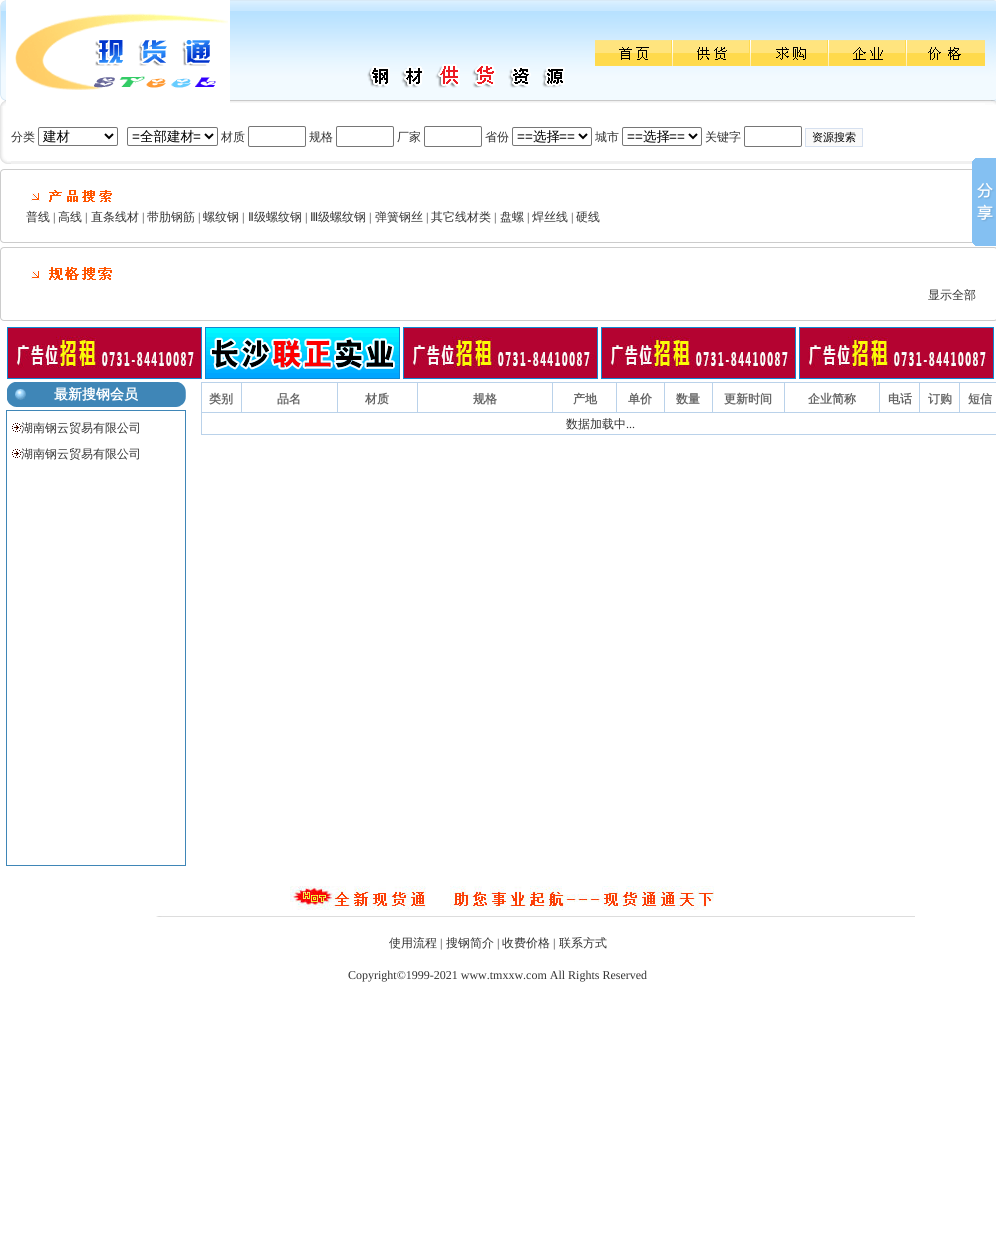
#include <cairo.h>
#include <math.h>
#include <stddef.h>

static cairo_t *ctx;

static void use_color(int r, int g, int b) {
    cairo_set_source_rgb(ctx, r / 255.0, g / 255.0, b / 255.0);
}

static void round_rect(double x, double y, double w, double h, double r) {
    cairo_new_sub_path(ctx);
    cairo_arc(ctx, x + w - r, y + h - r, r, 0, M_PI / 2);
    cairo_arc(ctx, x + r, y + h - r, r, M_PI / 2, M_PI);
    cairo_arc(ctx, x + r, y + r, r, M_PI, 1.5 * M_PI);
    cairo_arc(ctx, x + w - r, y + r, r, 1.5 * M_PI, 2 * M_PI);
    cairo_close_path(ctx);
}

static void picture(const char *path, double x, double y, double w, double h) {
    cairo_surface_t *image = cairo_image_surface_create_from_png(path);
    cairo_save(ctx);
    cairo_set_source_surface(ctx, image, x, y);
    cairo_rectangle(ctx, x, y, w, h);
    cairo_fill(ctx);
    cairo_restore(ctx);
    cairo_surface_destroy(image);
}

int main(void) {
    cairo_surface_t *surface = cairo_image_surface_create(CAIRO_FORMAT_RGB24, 996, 1250);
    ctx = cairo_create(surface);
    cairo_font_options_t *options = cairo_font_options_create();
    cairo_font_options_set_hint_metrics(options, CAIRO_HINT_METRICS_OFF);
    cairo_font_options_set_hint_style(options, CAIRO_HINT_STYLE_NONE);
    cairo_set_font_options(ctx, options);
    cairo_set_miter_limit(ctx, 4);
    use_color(255, 255, 255);
    cairo_paint(ctx);
    picture("img1.png", 0, 0, 6, 106);
    picture("img2.png", 15, 13, 213, 77);
    picture("img3.png", 230, 0, 104, 103);
    picture("img4.png", 334, 0, 261, 103);
    picture("img5.png", 367, 64, 198, 24);
    picture("img6.png", 595, 0, 390, 103);
    picture("img7.png", 595, 40, 78, 26);
    picture("img8.png", 673, 40, 78, 26);
    picture("img9.png", 751, 40, 78, 26);
    picture("img10.png", 829, 40, 78, 26);
    picture("img11.png", 907, 40, 78, 26);
    picture("img12.png", 985, 0, 11, 105);
    picture("img13.png", 0, 106, 11, 58);
    use_color(240, 240, 240);
    cairo_rectangle(ctx, 11, 161, 961, 3);
    cairo_fill(ctx);
    cairo_select_font_face(ctx, "WenQuanYi Zen Hei Medium", CAIRO_FONT_SLANT_NORMAL, CAIRO_FONT_WEIGHT_NORMAL);
    cairo_set_font_size(ctx, 12);
    use_color(51, 51, 51);
    cairo_move_to(ctx, 11, 141);
    cairo_show_text(ctx, "分类");
    round_rect(38.5, 127.5, 79, 18, 1.5);
    use_color(118, 118, 118);
    cairo_set_line_width(ctx, 1);
    cairo_stroke(ctx);
    cairo_new_path(ctx);
    cairo_move_to(ctx, 105, 134);
    cairo_line_to(ctx, 109, 138);
    cairo_line_to(ctx, 113, 134);
    use_color(0, 0, 0);
    cairo_set_line_width(ctx, 2);
    cairo_stroke(ctx);
    cairo_set_font_size(ctx, 13.5);
    cairo_move_to(ctx, 43, 141);
    cairo_show_text(ctx, "建材");
    round_rect(127.5, 127.5, 90, 18, 1.5);
    use_color(118, 118, 118);
    cairo_set_line_width(ctx, 1);
    cairo_stroke(ctx);
    cairo_new_path(ctx);
    cairo_move_to(ctx, 205, 134);
    cairo_line_to(ctx, 209, 138);
    cairo_line_to(ctx, 213, 134);
    use_color(0, 0, 0);
    cairo_set_line_width(ctx, 2);
    cairo_stroke(ctx);
    cairo_select_font_face(ctx, "Liberation Sans", CAIRO_FONT_SLANT_NORMAL, CAIRO_FONT_WEIGHT_NORMAL);
    cairo_move_to(ctx, 132, 141);
    cairo_show_text(ctx, "=");
    cairo_select_font_face(ctx, "WenQuanYi Zen Hei Medium", CAIRO_FONT_SLANT_NORMAL, CAIRO_FONT_WEIGHT_NORMAL);
    cairo_move_to(ctx, 140, 141);
    cairo_show_text(ctx, "全部建材");
    cairo_select_font_face(ctx, "Liberation Sans", CAIRO_FONT_SLANT_NORMAL, CAIRO_FONT_WEIGHT_NORMAL);
    cairo_move_to(ctx, 193, 141);
    cairo_show_text(ctx, "=");
    cairo_select_font_face(ctx, "WenQuanYi Zen Hei Medium", CAIRO_FONT_SLANT_NORMAL, CAIRO_FONT_WEIGHT_NORMAL);
    cairo_set_font_size(ctx, 12);
    use_color(51, 51, 51);
    cairo_move_to(ctx, 221, 141);
    cairo_show_text(ctx, "材质");
    round_rect(248.5, 126.5, 57, 20, 1.5);
    use_color(118, 118, 118);
    cairo_set_line_width(ctx, 1);
    cairo_stroke(ctx);
    use_color(51, 51, 51);
    cairo_move_to(ctx, 309, 141);
    cairo_show_text(ctx, "规格");
    round_rect(336.5, 126.5, 57, 20, 1.5);
    use_color(118, 118, 118);
    cairo_stroke(ctx);
    use_color(51, 51, 51);
    cairo_move_to(ctx, 397, 141);
    cairo_show_text(ctx, "厂家");
    round_rect(424.5, 126.5, 57, 20, 1.5);
    use_color(118, 118, 118);
    cairo_stroke(ctx);
    use_color(51, 51, 51);
    cairo_move_to(ctx, 485, 141);
    cairo_show_text(ctx, "省份");
    round_rect(512.5, 127.5, 79, 18, 1.5);
    use_color(118, 118, 118);
    cairo_stroke(ctx);
    cairo_new_path(ctx);
    cairo_move_to(ctx, 579, 134);
    cairo_line_to(ctx, 583, 138);
    cairo_line_to(ctx, 587, 134);
    use_color(0, 0, 0);
    cairo_set_line_width(ctx, 2);
    cairo_stroke(ctx);
    cairo_select_font_face(ctx, "Liberation Sans", CAIRO_FONT_SLANT_NORMAL, CAIRO_FONT_WEIGHT_NORMAL);
    cairo_set_font_size(ctx, 13.5);
    cairo_move_to(ctx, 517, 141);
    cairo_show_text(ctx, "==");
    cairo_select_font_face(ctx, "WenQuanYi Zen Hei Medium", CAIRO_FONT_SLANT_NORMAL, CAIRO_FONT_WEIGHT_NORMAL);
    cairo_move_to(ctx, 533, 141);
    cairo_show_text(ctx, "选择");
    cairo_select_font_face(ctx, "Liberation Sans", CAIRO_FONT_SLANT_NORMAL, CAIRO_FONT_WEIGHT_NORMAL);
    cairo_move_to(ctx, 559, 141);
    cairo_show_text(ctx, "==");
    cairo_select_font_face(ctx, "WenQuanYi Zen Hei Medium", CAIRO_FONT_SLANT_NORMAL, CAIRO_FONT_WEIGHT_NORMAL);
    cairo_set_font_size(ctx, 12);
    use_color(51, 51, 51);
    cairo_move_to(ctx, 595, 141);
    cairo_show_text(ctx, "城市");
    round_rect(622.5, 127.5, 79, 18, 1.5);
    use_color(118, 118, 118);
    cairo_set_line_width(ctx, 1);
    cairo_stroke(ctx);
    cairo_new_path(ctx);
    cairo_move_to(ctx, 689, 134);
    cairo_line_to(ctx, 693, 138);
    cairo_line_to(ctx, 697, 134);
    use_color(0, 0, 0);
    cairo_set_line_width(ctx, 2);
    cairo_stroke(ctx);
    cairo_select_font_face(ctx, "Liberation Sans", CAIRO_FONT_SLANT_NORMAL, CAIRO_FONT_WEIGHT_NORMAL);
    cairo_set_font_size(ctx, 13.5);
    cairo_move_to(ctx, 627, 141);
    cairo_show_text(ctx, "==");
    cairo_select_font_face(ctx, "WenQuanYi Zen Hei Medium", CAIRO_FONT_SLANT_NORMAL, CAIRO_FONT_WEIGHT_NORMAL);
    cairo_move_to(ctx, 643, 141);
    cairo_show_text(ctx, "选择");
    cairo_select_font_face(ctx, "Liberation Sans", CAIRO_FONT_SLANT_NORMAL, CAIRO_FONT_WEIGHT_NORMAL);
    cairo_move_to(ctx, 669, 141);
    cairo_show_text(ctx, "==");
    cairo_select_font_face(ctx, "WenQuanYi Zen Hei Medium", CAIRO_FONT_SLANT_NORMAL, CAIRO_FONT_WEIGHT_NORMAL);
    cairo_set_font_size(ctx, 12);
    use_color(51, 51, 51);
    cairo_move_to(ctx, 705, 141);
    cairo_show_text(ctx, "关键字");
    round_rect(744.5, 126.5, 57, 20, 1.5);
    use_color(118, 118, 118);
    cairo_set_line_width(ctx, 1);
    cairo_stroke(ctx);
    use_color(250, 250, 250);
    cairo_rectangle(ctx, 805.5, 128.5, 57, 18);
    cairo_fill_preserve(ctx);
    use_color(214, 224, 239);
    cairo_stroke(ctx);
    cairo_set_font_size(ctx, 11);
    use_color(0, 0, 0);
    cairo_move_to(ctx, 812, 141);
    cairo_show_text(ctx, "资源搜索");
    picture("img14.png", 0, 169, 8, 6);
    use_color(204, 204, 204);
    cairo_rectangle(ctx, 8, 169, 964, 1);
    cairo_fill(ctx);
    cairo_rectangle(ctx, 0, 175, 1, 63);
    cairo_fill(ctx);
    picture("img15.png", 31, 190, 81, 12);
    cairo_set_font_size(ctx, 12);
    use_color(51, 51, 51);
    cairo_move_to(ctx, 26, 221);
    cairo_show_text(ctx, "普线");
    cairo_select_font_face(ctx, "Liberation Serif", CAIRO_FONT_SLANT_NORMAL, CAIRO_FONT_WEIGHT_NORMAL);
    cairo_move_to(ctx, 53, 221);
    cairo_show_text(ctx, "|");
    cairo_select_font_face(ctx, "WenQuanYi Zen Hei Medium", CAIRO_FONT_SLANT_NORMAL, CAIRO_FONT_WEIGHT_NORMAL);
    cairo_move_to(ctx, 58, 221);
    cairo_show_text(ctx, "高线");
    cairo_select_font_face(ctx, "Liberation Serif", CAIRO_FONT_SLANT_NORMAL, CAIRO_FONT_WEIGHT_NORMAL);
    cairo_move_to(ctx, 85, 221);
    cairo_show_text(ctx, "|");
    cairo_select_font_face(ctx, "WenQuanYi Zen Hei Medium", CAIRO_FONT_SLANT_NORMAL, CAIRO_FONT_WEIGHT_NORMAL);
    cairo_move_to(ctx, 91, 221);
    cairo_show_text(ctx, "直条线材");
    cairo_select_font_face(ctx, "Liberation Serif", CAIRO_FONT_SLANT_NORMAL, CAIRO_FONT_WEIGHT_NORMAL);
    cairo_move_to(ctx, 142, 221);
    cairo_show_text(ctx, "|");
    cairo_select_font_face(ctx, "WenQuanYi Zen Hei Medium", CAIRO_FONT_SLANT_NORMAL, CAIRO_FONT_WEIGHT_NORMAL);
    cairo_move_to(ctx, 147, 221);
    cairo_show_text(ctx, "带肋钢筋");
    cairo_select_font_face(ctx, "Liberation Serif", CAIRO_FONT_SLANT_NORMAL, CAIRO_FONT_WEIGHT_NORMAL);
    cairo_move_to(ctx, 198, 221);
    cairo_show_text(ctx, "|");
    cairo_select_font_face(ctx, "WenQuanYi Zen Hei Medium", CAIRO_FONT_SLANT_NORMAL, CAIRO_FONT_WEIGHT_NORMAL);
    cairo_move_to(ctx, 203, 221);
    cairo_show_text(ctx, "螺纹钢");
    cairo_select_font_face(ctx, "Liberation Serif", CAIRO_FONT_SLANT_NORMAL, CAIRO_FONT_WEIGHT_NORMAL);
    cairo_move_to(ctx, 242, 221);
    cairo_show_text(ctx, "|");
    cairo_select_font_face(ctx, "DejaVu Sans", CAIRO_FONT_SLANT_NORMAL, CAIRO_FONT_WEIGHT_NORMAL);
    cairo_move_to(ctx, 248, 221);
    cairo_show_text(ctx, "Ⅱ");
    cairo_select_font_face(ctx, "WenQuanYi Zen Hei Medium", CAIRO_FONT_SLANT_NORMAL, CAIRO_FONT_WEIGHT_NORMAL);
    cairo_move_to(ctx, 254, 221);
    cairo_show_text(ctx, "级螺纹钢");
    cairo_select_font_face(ctx, "Liberation Serif", CAIRO_FONT_SLANT_NORMAL, CAIRO_FONT_WEIGHT_NORMAL);
    cairo_move_to(ctx, 305, 221);
    cairo_show_text(ctx, "|");
    cairo_select_font_face(ctx, "DejaVu Sans", CAIRO_FONT_SLANT_NORMAL, CAIRO_FONT_WEIGHT_NORMAL);
    cairo_move_to(ctx, 310, 221);
    cairo_show_text(ctx, "Ⅲ");
    cairo_select_font_face(ctx, "WenQuanYi Zen Hei Medium", CAIRO_FONT_SLANT_NORMAL, CAIRO_FONT_WEIGHT_NORMAL);
    cairo_move_to(ctx, 318, 221);
    cairo_show_text(ctx, "级螺纹钢");
    cairo_select_font_face(ctx, "Liberation Serif", CAIRO_FONT_SLANT_NORMAL, CAIRO_FONT_WEIGHT_NORMAL);
    cairo_move_to(ctx, 369, 221);
    cairo_show_text(ctx, "|");
    cairo_select_font_face(ctx, "WenQuanYi Zen Hei Medium", CAIRO_FONT_SLANT_NORMAL, CAIRO_FONT_WEIGHT_NORMAL);
    cairo_move_to(ctx, 375, 221);
    cairo_show_text(ctx, "弹簧钢丝");
    cairo_select_font_face(ctx, "Liberation Serif", CAIRO_FONT_SLANT_NORMAL, CAIRO_FONT_WEIGHT_NORMAL);
    cairo_move_to(ctx, 426, 221);
    cairo_show_text(ctx, "|");
    cairo_select_font_face(ctx, "WenQuanYi Zen Hei Medium", CAIRO_FONT_SLANT_NORMAL, CAIRO_FONT_WEIGHT_NORMAL);
    cairo_move_to(ctx, 431, 221);
    cairo_show_text(ctx, "其它线材类");
    cairo_select_font_face(ctx, "Liberation Serif", CAIRO_FONT_SLANT_NORMAL, CAIRO_FONT_WEIGHT_NORMAL);
    cairo_move_to(ctx, 494, 221);
    cairo_show_text(ctx, "|");
    cairo_select_font_face(ctx, "WenQuanYi Zen Hei Medium", CAIRO_FONT_SLANT_NORMAL, CAIRO_FONT_WEIGHT_NORMAL);
    cairo_move_to(ctx, 500, 221);
    cairo_show_text(ctx, "盘螺");
    cairo_select_font_face(ctx, "Liberation Serif", CAIRO_FONT_SLANT_NORMAL, CAIRO_FONT_WEIGHT_NORMAL);
    cairo_move_to(ctx, 527, 221);
    cairo_show_text(ctx, "|");
    cairo_select_font_face(ctx, "WenQuanYi Zen Hei Medium", CAIRO_FONT_SLANT_NORMAL, CAIRO_FONT_WEIGHT_NORMAL);
    cairo_move_to(ctx, 532, 221);
    cairo_show_text(ctx, "焊丝线");
    cairo_select_font_face(ctx, "Liberation Serif", CAIRO_FONT_SLANT_NORMAL, CAIRO_FONT_WEIGHT_NORMAL);
    cairo_move_to(ctx, 571, 221);
    cairo_show_text(ctx, "|");
    cairo_select_font_face(ctx, "WenQuanYi Zen Hei Medium", CAIRO_FONT_SLANT_NORMAL, CAIRO_FONT_WEIGHT_NORMAL);
    cairo_move_to(ctx, 576, 221);
    cairo_show_text(ctx, "硬线");
    picture("img16.png", 0, 238, 8, 5);
    use_color(204, 204, 204);
    cairo_rectangle(ctx, 8, 242, 964, 1);
    cairo_fill(ctx);
    picture("img14.png", 0, 247, 8, 6);
    cairo_rectangle(ctx, 8, 247, 986, 1);
    cairo_fill(ctx);
    picture("img17.png", 994, 247, 2, 2);
    cairo_rectangle(ctx, 0, 253, 1, 63);
    cairo_fill(ctx);
    picture("img18.png", 31, 267, 81, 13);
    use_color(51, 51, 51);
    cairo_move_to(ctx, 928, 299);
    cairo_show_text(ctx, "显示全部");
    picture("img16.png", 0, 316, 8, 5);
    use_color(204, 204, 204);
    cairo_rectangle(ctx, 8, 320, 986, 1);
    cairo_fill(ctx);
    picture("img19.png", 994, 319, 2, 2);
    cairo_rectangle(ctx, 7.5, 327.5, 194, 51);
    use_color(16, 137, 210);
    cairo_stroke(ctx);
    cairo_rectangle(ctx, 205.5, 327.5, 194, 51);
    cairo_stroke(ctx);
    cairo_rectangle(ctx, 403.5, 327.5, 194, 51);
    cairo_stroke(ctx);
    cairo_rectangle(ctx, 601.5, 327.5, 194, 51);
    cairo_stroke(ctx);
    cairo_rectangle(ctx, 799.5, 327.5, 194, 51);
    cairo_stroke(ctx);
    picture("img20.png", 8, 328, 193, 50);
    picture("img21.png", 206, 328, 193, 50);
    picture("img20.png", 404, 328, 193, 50);
    picture("img20.png", 602, 328, 193, 50);
    picture("img20.png", 800, 328, 193, 50);
    picture("img22.png", 7, 382, 179, 25);
    cairo_select_font_face(ctx, "WenQuanYi Zen Hei", CAIRO_FONT_SLANT_NORMAL, CAIRO_FONT_WEIGHT_BOLD);
    cairo_set_font_size(ctx, 14);
    use_color(255, 255, 255);
    cairo_move_to(ctx, 54, 399);
    cairo_show_text(ctx, "最新搜钢会员");
    use_color(63, 134, 183);
    cairo_rectangle(ctx, 6, 410, 180, 456);
    cairo_fill(ctx);
    use_color(255, 255, 255);
    cairo_rectangle(ctx, 7, 411, 178, 454);
    cairo_fill(ctx);
    picture("img23.png", 12, 423, 9, 9);
    cairo_select_font_face(ctx, "WenQuanYi Zen Hei Medium", CAIRO_FONT_SLANT_NORMAL, CAIRO_FONT_WEIGHT_NORMAL);
    cairo_set_font_size(ctx, 12);
    use_color(51, 51, 51);
    cairo_move_to(ctx, 21, 432);
    cairo_show_text(ctx, "湖南钢云贸易有限公司");
    picture("img23.png", 12, 449, 9, 9);
    cairo_move_to(ctx, 21, 458);
    cairo_show_text(ctx, "湖南钢云贸易有限公司");
    use_color(186, 210, 234);
    cairo_rectangle(ctx, 959, 382, 37, 1);
    cairo_fill(ctx);
    cairo_rectangle(ctx, 201, 412, 795, 1);
    cairo_fill(ctx);
    cairo_rectangle(ctx, 959, 382, 1, 31);
    cairo_fill(ctx);
    cairo_rectangle(ctx, 919, 382, 41, 1);
    cairo_fill(ctx);
    cairo_rectangle(ctx, 919, 382, 1, 31);
    cairo_fill(ctx);
    cairo_rectangle(ctx, 879, 382, 41, 1);
    cairo_fill(ctx);
    cairo_rectangle(ctx, 879, 382, 1, 31);
    cairo_fill(ctx);
    cairo_rectangle(ctx, 784, 382, 96, 1);
    cairo_fill(ctx);
    cairo_rectangle(ctx, 784, 382, 1, 31);
    cairo_fill(ctx);
    cairo_rectangle(ctx, 712, 382, 73, 1);
    cairo_fill(ctx);
    cairo_rectangle(ctx, 712, 382, 1, 31);
    cairo_fill(ctx);
    cairo_rectangle(ctx, 664, 382, 49, 1);
    cairo_fill(ctx);
    cairo_rectangle(ctx, 664, 382, 1, 31);
    cairo_fill(ctx);
    cairo_rectangle(ctx, 616, 382, 49, 1);
    cairo_fill(ctx);
    cairo_rectangle(ctx, 616, 382, 1, 31);
    cairo_fill(ctx);
    cairo_rectangle(ctx, 552, 382, 65, 1);
    cairo_fill(ctx);
    cairo_rectangle(ctx, 552, 382, 1, 31);
    cairo_fill(ctx);
    cairo_rectangle(ctx, 417, 382, 136, 1);
    cairo_fill(ctx);
    cairo_rectangle(ctx, 417, 382, 1, 31);
    cairo_fill(ctx);
    cairo_rectangle(ctx, 337, 382, 81, 1);
    cairo_fill(ctx);
    cairo_rectangle(ctx, 337, 382, 1, 31);
    cairo_fill(ctx);
    cairo_rectangle(ctx, 241, 382, 97, 1);
    cairo_fill(ctx);
    cairo_rectangle(ctx, 241, 382, 1, 31);
    cairo_fill(ctx);
    cairo_rectangle(ctx, 201, 382, 41, 1);
    cairo_fill(ctx);
    cairo_rectangle(ctx, 201, 434, 795, 1);
    cairo_fill(ctx);
    cairo_rectangle(ctx, 201, 412, 1, 23);
    cairo_fill(ctx);
    cairo_rectangle(ctx, 201, 382, 1, 31);
    cairo_fill(ctx);
    cairo_select_font_face(ctx, "WenQuanYi Zen Hei", CAIRO_FONT_SLANT_NORMAL, CAIRO_FONT_WEIGHT_BOLD);
    use_color(102, 102, 102);
    cairo_move_to(ctx, 209, 403);
    cairo_show_text(ctx, "类别");
    cairo_move_to(ctx, 277, 403);
    cairo_show_text(ctx, "品名");
    cairo_move_to(ctx, 365, 403);
    cairo_show_text(ctx, "材质");
    cairo_move_to(ctx, 473, 403);
    cairo_show_text(ctx, "规格");
    cairo_move_to(ctx, 573, 403);
    cairo_show_text(ctx, "产地");
    cairo_move_to(ctx, 628, 403);
    cairo_show_text(ctx, "单价");
    cairo_move_to(ctx, 676, 403);
    cairo_show_text(ctx, "数量");
    cairo_move_to(ctx, 724, 403);
    cairo_show_text(ctx, "更新时间");
    cairo_move_to(ctx, 808, 403);
    cairo_show_text(ctx, "企业简称");
    cairo_move_to(ctx, 888, 403);
    cairo_show_text(ctx, "电话");
    cairo_move_to(ctx, 928, 403);
    cairo_show_text(ctx, "订购");
    cairo_move_to(ctx, 968, 403);
    cairo_show_text(ctx, "短信");
    cairo_select_font_face(ctx, "WenQuanYi Zen Hei Medium", CAIRO_FONT_SLANT_NORMAL, CAIRO_FONT_WEIGHT_NORMAL);
    use_color(51, 51, 51);
    cairo_move_to(ctx, 566, 428);
    cairo_show_text(ctx, "数据加载中");
    cairo_select_font_face(ctx, "Liberation Serif", CAIRO_FONT_SLANT_NORMAL, CAIRO_FONT_WEIGHT_NORMAL);
    cairo_move_to(ctx, 626, 428);
    cairo_show_text(ctx, "...");
    picture("img24.png", 290, 886, 424, 24);
    picture("img25.png", 156, 916, 759, 1);
    cairo_select_font_face(ctx, "WenQuanYi Zen Hei Medium", CAIRO_FONT_SLANT_NORMAL, CAIRO_FONT_WEIGHT_NORMAL);
    cairo_move_to(ctx, 389, 947);
    cairo_show_text(ctx, "使用流程");
    cairo_select_font_face(ctx, "Liberation Serif", CAIRO_FONT_SLANT_NORMAL, CAIRO_FONT_WEIGHT_NORMAL);
    cairo_move_to(ctx, 440, 947);
    cairo_show_text(ctx, "|");
    cairo_select_font_face(ctx, "WenQuanYi Zen Hei Medium", CAIRO_FONT_SLANT_NORMAL, CAIRO_FONT_WEIGHT_NORMAL);
    cairo_move_to(ctx, 446, 947);
    cairo_show_text(ctx, "搜钢简介");
    cairo_select_font_face(ctx, "Liberation Serif", CAIRO_FONT_SLANT_NORMAL, CAIRO_FONT_WEIGHT_NORMAL);
    cairo_move_to(ctx, 497, 947);
    cairo_show_text(ctx, "|");
    cairo_select_font_face(ctx, "WenQuanYi Zen Hei Medium", CAIRO_FONT_SLANT_NORMAL, CAIRO_FONT_WEIGHT_NORMAL);
    cairo_move_to(ctx, 502, 947);
    cairo_show_text(ctx, "收费价格");
    cairo_select_font_face(ctx, "Liberation Serif", CAIRO_FONT_SLANT_NORMAL, CAIRO_FONT_WEIGHT_NORMAL);
    cairo_move_to(ctx, 553, 947);
    cairo_show_text(ctx, "|");
    cairo_select_font_face(ctx, "WenQuanYi Zen Hei Medium", CAIRO_FONT_SLANT_NORMAL, CAIRO_FONT_WEIGHT_NORMAL);
    cairo_move_to(ctx, 559, 947);
    cairo_show_text(ctx, "联系方式");
    cairo_select_font_face(ctx, "Liberation Serif", CAIRO_FONT_SLANT_NORMAL, CAIRO_FONT_WEIGHT_NORMAL);
    cairo_move_to(ctx, 348, 979);
    cairo_show_text(ctx, "Copyright©1999-2021 www.tmxxw.com All Rights Reserved");
    picture("img26.png", 972, 158, 24, 88);
    cairo_surface_write_to_png(surface, "result.png");
    cairo_font_options_destroy(options);
    cairo_destroy(ctx);
    cairo_surface_destroy(surface);
    return 0;
}
